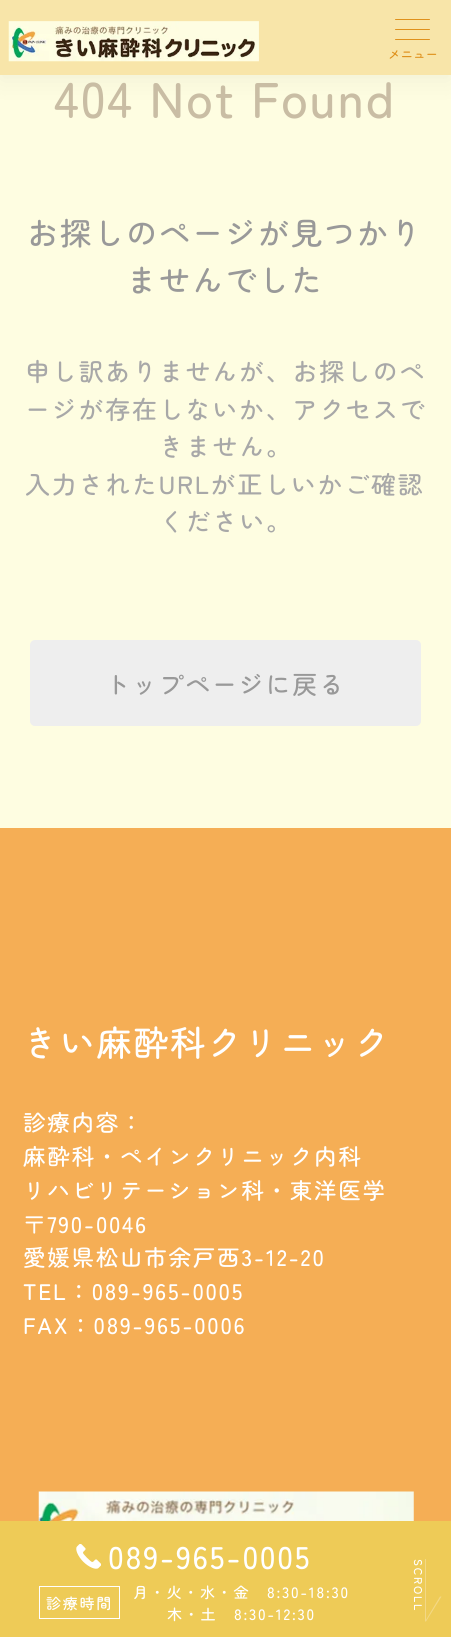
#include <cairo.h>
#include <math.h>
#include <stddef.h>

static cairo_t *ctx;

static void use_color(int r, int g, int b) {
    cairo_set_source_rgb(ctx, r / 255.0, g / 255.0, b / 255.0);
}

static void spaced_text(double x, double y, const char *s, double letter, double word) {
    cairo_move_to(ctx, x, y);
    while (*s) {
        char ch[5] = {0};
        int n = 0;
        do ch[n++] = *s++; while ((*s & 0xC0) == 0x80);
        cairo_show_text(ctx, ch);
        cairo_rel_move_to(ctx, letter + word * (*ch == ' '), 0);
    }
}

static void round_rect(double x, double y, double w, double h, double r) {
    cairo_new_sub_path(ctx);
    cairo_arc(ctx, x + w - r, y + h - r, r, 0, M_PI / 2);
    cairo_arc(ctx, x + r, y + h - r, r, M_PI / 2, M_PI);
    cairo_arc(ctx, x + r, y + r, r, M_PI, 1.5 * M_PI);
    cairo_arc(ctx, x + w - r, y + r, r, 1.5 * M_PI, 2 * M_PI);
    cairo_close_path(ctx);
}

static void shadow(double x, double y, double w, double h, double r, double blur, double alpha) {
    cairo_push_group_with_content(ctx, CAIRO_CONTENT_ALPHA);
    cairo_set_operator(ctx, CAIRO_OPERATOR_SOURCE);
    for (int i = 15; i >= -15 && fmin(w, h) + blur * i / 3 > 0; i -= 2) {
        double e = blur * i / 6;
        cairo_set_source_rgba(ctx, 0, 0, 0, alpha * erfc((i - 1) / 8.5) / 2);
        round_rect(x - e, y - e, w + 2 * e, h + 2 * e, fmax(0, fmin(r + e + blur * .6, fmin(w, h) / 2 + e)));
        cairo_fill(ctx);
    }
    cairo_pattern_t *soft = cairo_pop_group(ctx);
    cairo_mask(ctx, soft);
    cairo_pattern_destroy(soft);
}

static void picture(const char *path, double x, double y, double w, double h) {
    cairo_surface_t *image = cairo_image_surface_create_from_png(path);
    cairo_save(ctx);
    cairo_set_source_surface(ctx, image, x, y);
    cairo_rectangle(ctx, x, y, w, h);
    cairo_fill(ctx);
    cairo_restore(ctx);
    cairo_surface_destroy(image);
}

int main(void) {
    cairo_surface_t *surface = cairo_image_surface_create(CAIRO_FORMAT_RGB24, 451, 1637);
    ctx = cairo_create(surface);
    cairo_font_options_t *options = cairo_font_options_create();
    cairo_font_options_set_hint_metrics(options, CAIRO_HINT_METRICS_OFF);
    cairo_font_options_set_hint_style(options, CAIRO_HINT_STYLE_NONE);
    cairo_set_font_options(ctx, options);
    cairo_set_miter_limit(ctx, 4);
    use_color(254, 253, 225);
    cairo_paint(ctx);
    use_color(0, 0, 0);
    shadow(0, 6, 451, 75, 0, 12.5, 0.05);
    use_color(248, 229, 169);
    cairo_rectangle(ctx, 0, 0, 451, 75);
    cairo_fill(ctx);
    picture("img1.png", 8, 21, 251, 41);
    use_color(223, 145, 28);
    round_rect(395, 19, 35, 1, 0.5);
    cairo_fill(ctx);
    round_rect(395, 29, 35, 1, 0.5);
    cairo_fill(ctx);
    round_rect(395, 39, 35, 1, 0.5);
    cairo_fill(ctx);
    cairo_select_font_face(ctx, "Zen Maru Gothic Medium", CAIRO_FONT_SLANT_NORMAL, CAIRO_FONT_WEIGHT_NORMAL);
    cairo_set_font_size(ctx, 12.5);
    cairo_move_to(ctx, 388, 59);
    cairo_show_text(ctx, "メニュー");
    cairo_set_font_size(ctx, 50);
    use_color(201, 189, 164);
    spaced_text(54, 118, "404 Not Found", 1.75, 0);
    cairo_set_font_size(ctx, 31.25);
    use_color(153, 153, 153);
    spaced_text(27, 245, "お探しのページが見つかり", 1.75, 0);
    spaced_text(126, 292, "ませんでした", 1.75, 0);
    cairo_set_font_size(ctx, 25);
    use_color(168, 168, 168);
    spaced_text(25, 381, "申し訳ありませんが、お探しのペ", 1.75, 0);
    spaced_text(25, 419, "ージが存在しないか、アクセスで", 1.75, 0);
    spaced_text(159, 456, "きません。", 1.75, 0);
    spaced_text(25, 494, "入力されたURLが正しいかご確認", 1.75, 0);
    spaced_text(159, 531, "ください。", 1.75, 0);
    use_color(238, 238, 238);
    round_rect(30, 640, 391, 86, 5);
    cairo_fill(ctx);
    use_color(153, 153, 153);
    spaced_text(105, 694, "トップページに戻る", 1.75, 0);
    use_color(245, 174, 85);
    cairo_rectangle(ctx, 0, 828, 451, 693);
    cairo_fill(ctx);
    cairo_set_font_size(ctx, 35);
    use_color(255, 255, 255);
    spaced_text(23, 1056, "きい麻酔科クリニック", 1.75, 0);
    cairo_set_font_size(ctx, 22.5);
    spaced_text(23, 1131, "診療内容：", 1.75, 0);
    spaced_text(23, 1165, "麻酔科・ペインクリニック内科", 1.75, 0);
    spaced_text(23, 1199, "リハビリテーション科・東洋医学", 1.75, 0);
    spaced_text(23, 1233, "〒790-0046", 1.75, 0);
    spaced_text(23, 1266, "愛媛県松山市余戸西3-12-20", 1.75, 0);
    spaced_text(23, 1300, "TEL：089-965-0005", 1.75, 0);
    spaced_text(23, 1334, "FAX：089-965-0006", 1.75, 0);
    picture("img2.png", 38, 1491, 376, 30);
    use_color(238, 203, 87);
    cairo_rectangle(ctx, 0, 1521, 451, 116);
    cairo_fill(ctx);
    picture("img3.png", 76, 1544, 25, 25);
    cairo_set_font_size(ctx, 31.25);
    use_color(255, 255, 255);
    spaced_text(108, 1569, "089-965-0005", 1.75, 0);
    cairo_rectangle(ctx, 39.5, 1586.5, 80, 32);
    cairo_set_line_width(ctx, 1);
    cairo_stroke(ctx);
    cairo_set_font_size(ctx, 15);
    spaced_text(46, 1609, "診療時間", 1.75, 0);
    spaced_text(133, 1598, "月・火・水・金　8:30-18:30", 1.75, 0);
    spaced_text(167, 1620, "木・土　8:30-12:30", 1.75, 0);
    cairo_set_font_size(ctx, 11.25);
    cairo_save(ctx);
    cairo_translate(ctx, 414, 1559);
    cairo_rotate(ctx, 90 * M_PI / 180);
    spaced_text(0, 0, "SCROLL", 1.75, 0);
    cairo_restore(ctx);
    use_color(243, 216, 133);
    cairo_new_path(ctx);
    cairo_move_to(ctx, 440, 1596.5);
    cairo_line_to(ctx, 441.5, 1596.5);
    cairo_line_to(ctx, 426, 1621.5);
    cairo_line_to(ctx, 425, 1621.5);
    cairo_close_path(ctx);
    cairo_fill(ctx);
    cairo_rectangle(ctx, 425, 1559, 1, 62);
    cairo_fill(ctx);
    cairo_surface_write_to_png(surface, "result.png");
    cairo_font_options_destroy(options);
    cairo_destroy(ctx);
    cairo_surface_destroy(surface);
    return 0;
}
